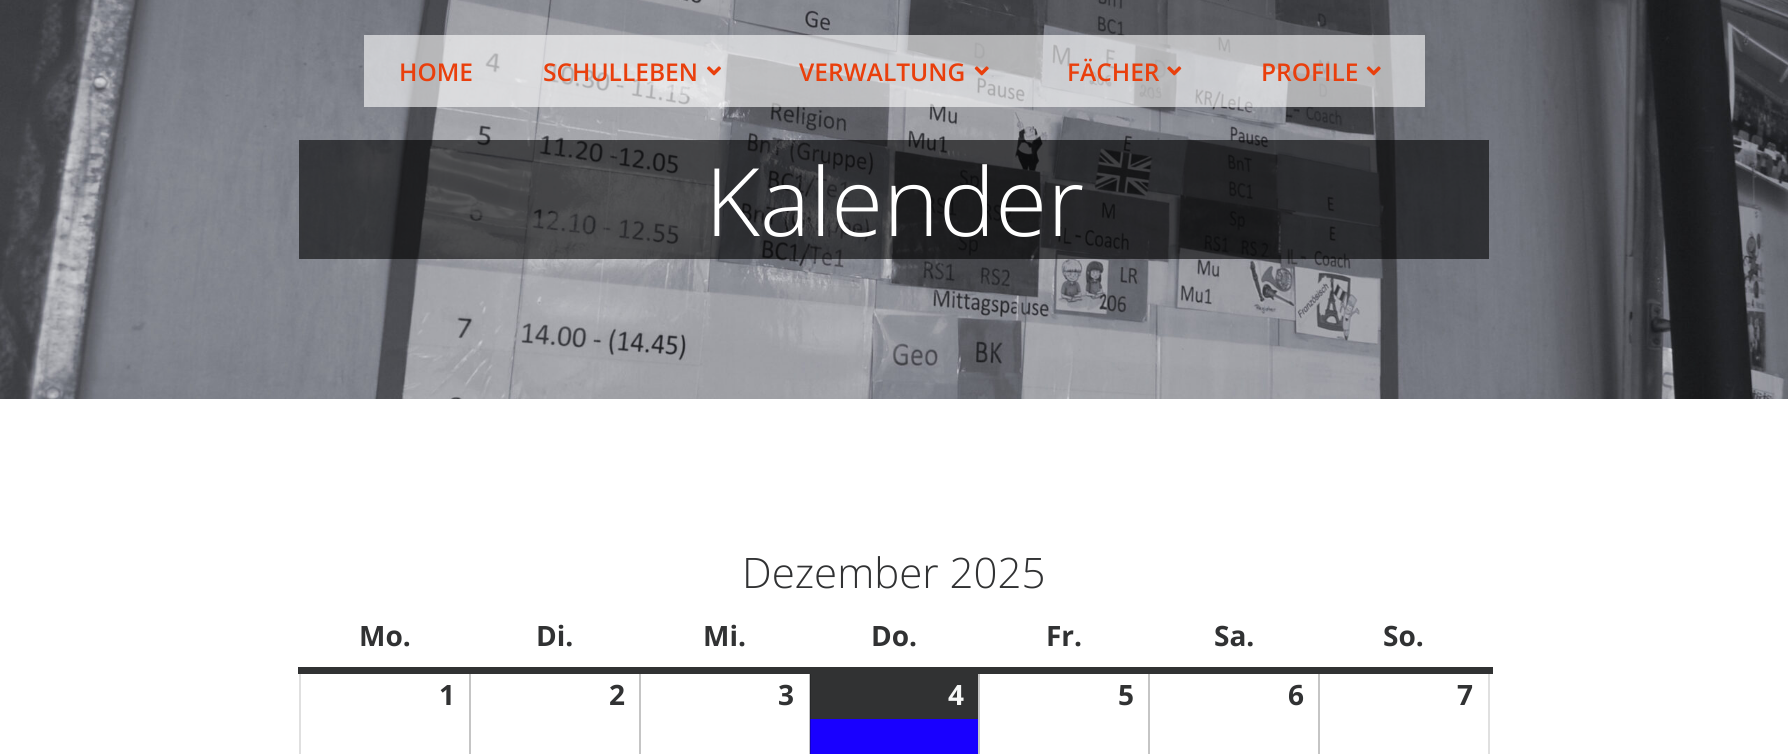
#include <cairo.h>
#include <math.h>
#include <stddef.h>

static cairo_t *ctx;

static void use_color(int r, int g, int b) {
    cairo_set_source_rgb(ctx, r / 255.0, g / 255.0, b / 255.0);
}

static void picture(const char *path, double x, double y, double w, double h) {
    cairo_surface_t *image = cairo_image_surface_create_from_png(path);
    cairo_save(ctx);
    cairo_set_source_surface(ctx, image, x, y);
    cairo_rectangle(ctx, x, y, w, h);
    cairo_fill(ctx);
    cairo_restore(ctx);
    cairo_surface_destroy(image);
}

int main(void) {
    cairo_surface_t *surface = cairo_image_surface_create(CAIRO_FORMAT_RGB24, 1788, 754);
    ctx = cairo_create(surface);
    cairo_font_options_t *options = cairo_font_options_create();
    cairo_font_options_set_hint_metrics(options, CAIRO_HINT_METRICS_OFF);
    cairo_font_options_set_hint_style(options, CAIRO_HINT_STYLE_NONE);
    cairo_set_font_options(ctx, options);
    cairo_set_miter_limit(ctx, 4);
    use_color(255, 255, 255);
    cairo_paint(ctx);
    use_color(224, 224, 224);
    cairo_rectangle(ctx, 299, 669, 2, 85);
    cairo_fill(ctx);
    use_color(197, 197, 197);
    cairo_rectangle(ctx, 469, 669, 2, 85);
    cairo_fill(ctx);
    cairo_rectangle(ctx, 639, 669, 2, 85);
    cairo_fill(ctx);
    cairo_rectangle(ctx, 809, 669, 1, 85);
    cairo_fill(ctx);
    cairo_rectangle(ctx, 978, 669, 2, 85);
    cairo_fill(ctx);
    cairo_rectangle(ctx, 1148, 669, 2, 85);
    cairo_fill(ctx);
    cairo_rectangle(ctx, 1318, 669, 2, 85);
    cairo_fill(ctx);
    use_color(224, 224, 224);
    cairo_rectangle(ctx, 1488, 669, 2, 85);
    cairo_fill(ctx);
    picture("img5.png", 0, 0, 1788, 399);
    cairo_set_source_rgba(ctx, 1, 1, 1, 0.6);
    cairo_rectangle(ctx, 364, 35, 1061, 72);
    cairo_fill(ctx);
    cairo_select_font_face(ctx, "Open Sans SemiBold", CAIRO_FONT_SLANT_NORMAL, CAIRO_FONT_WEIGHT_NORMAL);
    cairo_set_font_size(ctx, 24.5);
    use_color(233, 63, 12);
    cairo_move_to(ctx, 399, 81);
    cairo_show_text(ctx, "HOME");
    cairo_move_to(ctx, 543, 81);
    cairo_show_text(ctx, "SCHULLEBEN");
    picture("img1.png", 707, 66, 14, 10);
    cairo_move_to(ctx, 799, 81);
    cairo_show_text(ctx, "VERWALTUNG");
    picture("img2.png", 974, 66, 15, 10);
    cairo_move_to(ctx, 1067, 81);
    cairo_show_text(ctx, "FÄCHER");
    picture("img3.png", 1167, 66, 15, 10);
    cairo_move_to(ctx, 1261, 81);
    cairo_show_text(ctx, "PROFILE");
    picture("img4.png", 1366, 66, 15, 10);
    cairo_set_source_rgba(ctx, 0, 0, 0, 0.59);
    cairo_rectangle(ctx, 299, 140, 1190, 119);
    cairo_fill(ctx);
    cairo_select_font_face(ctx, "Open Sans Light", CAIRO_FONT_SLANT_NORMAL, CAIRO_FONT_WEIGHT_NORMAL);
    cairo_set_font_size(ctx, 94.5);
    use_color(255, 255, 255);
    cairo_move_to(ctx, 705, 236);
    cairo_show_text(ctx, "Kalender");
    cairo_set_font_size(ctx, 42);
    use_color(49, 50, 51);
    cairo_move_to(ctx, 742, 588);
    cairo_show_text(ctx, "Dezember 2025");
    cairo_rectangle(ctx, 298, 667, 1195, 7);
    cairo_fill(ctx);
    cairo_select_font_face(ctx, "Open Sans", CAIRO_FONT_SLANT_NORMAL, CAIRO_FONT_WEIGHT_BOLD);
    cairo_set_font_size(ctx, 28);
    cairo_move_to(ctx, 359, 646);
    cairo_show_text(ctx, "Mo.");
    cairo_move_to(ctx, 536, 646);
    cairo_show_text(ctx, "Di.");
    cairo_move_to(ctx, 703, 646);
    cairo_show_text(ctx, "Mi.");
    cairo_move_to(ctx, 871, 646);
    cairo_show_text(ctx, "Do.");
    cairo_move_to(ctx, 1046, 646);
    cairo_show_text(ctx, "Fr.");
    cairo_move_to(ctx, 1214, 646);
    cairo_show_text(ctx, "Sa.");
    cairo_move_to(ctx, 1383, 646);
    cairo_show_text(ctx, "So.");
    cairo_move_to(ctx, 439, 705);
    cairo_show_text(ctx, "1");
    cairo_move_to(ctx, 609, 705);
    cairo_show_text(ctx, "2");
    cairo_move_to(ctx, 778, 705);
    cairo_show_text(ctx, "3");
    cairo_rectangle(ctx, 811, 674, 167, 45);
    cairo_fill(ctx);
    use_color(38, 39, 40);
    cairo_rectangle(ctx, 810, 674, 1, 45);
    cairo_fill(ctx);
    use_color(246, 247, 247);
    cairo_move_to(ctx, 948, 705);
    cairo_show_text(ctx, "4");
    use_color(25, 0, 255);
    cairo_rectangle(ctx, 811, 719, 167, 35);
    cairo_fill(ctx);
    use_color(19, 0, 197);
    cairo_rectangle(ctx, 810, 719, 1, 35);
    cairo_fill(ctx);
    use_color(49, 50, 51);
    cairo_move_to(ctx, 1118, 705);
    cairo_show_text(ctx, "5");
    cairo_move_to(ctx, 1288, 705);
    cairo_show_text(ctx, "6");
    cairo_move_to(ctx, 1457, 705);
    cairo_show_text(ctx, "7");
    cairo_surface_write_to_png(surface, "result.png");
    cairo_font_options_destroy(options);
    cairo_destroy(ctx);
    cairo_surface_destroy(surface);
    return 0;
}
